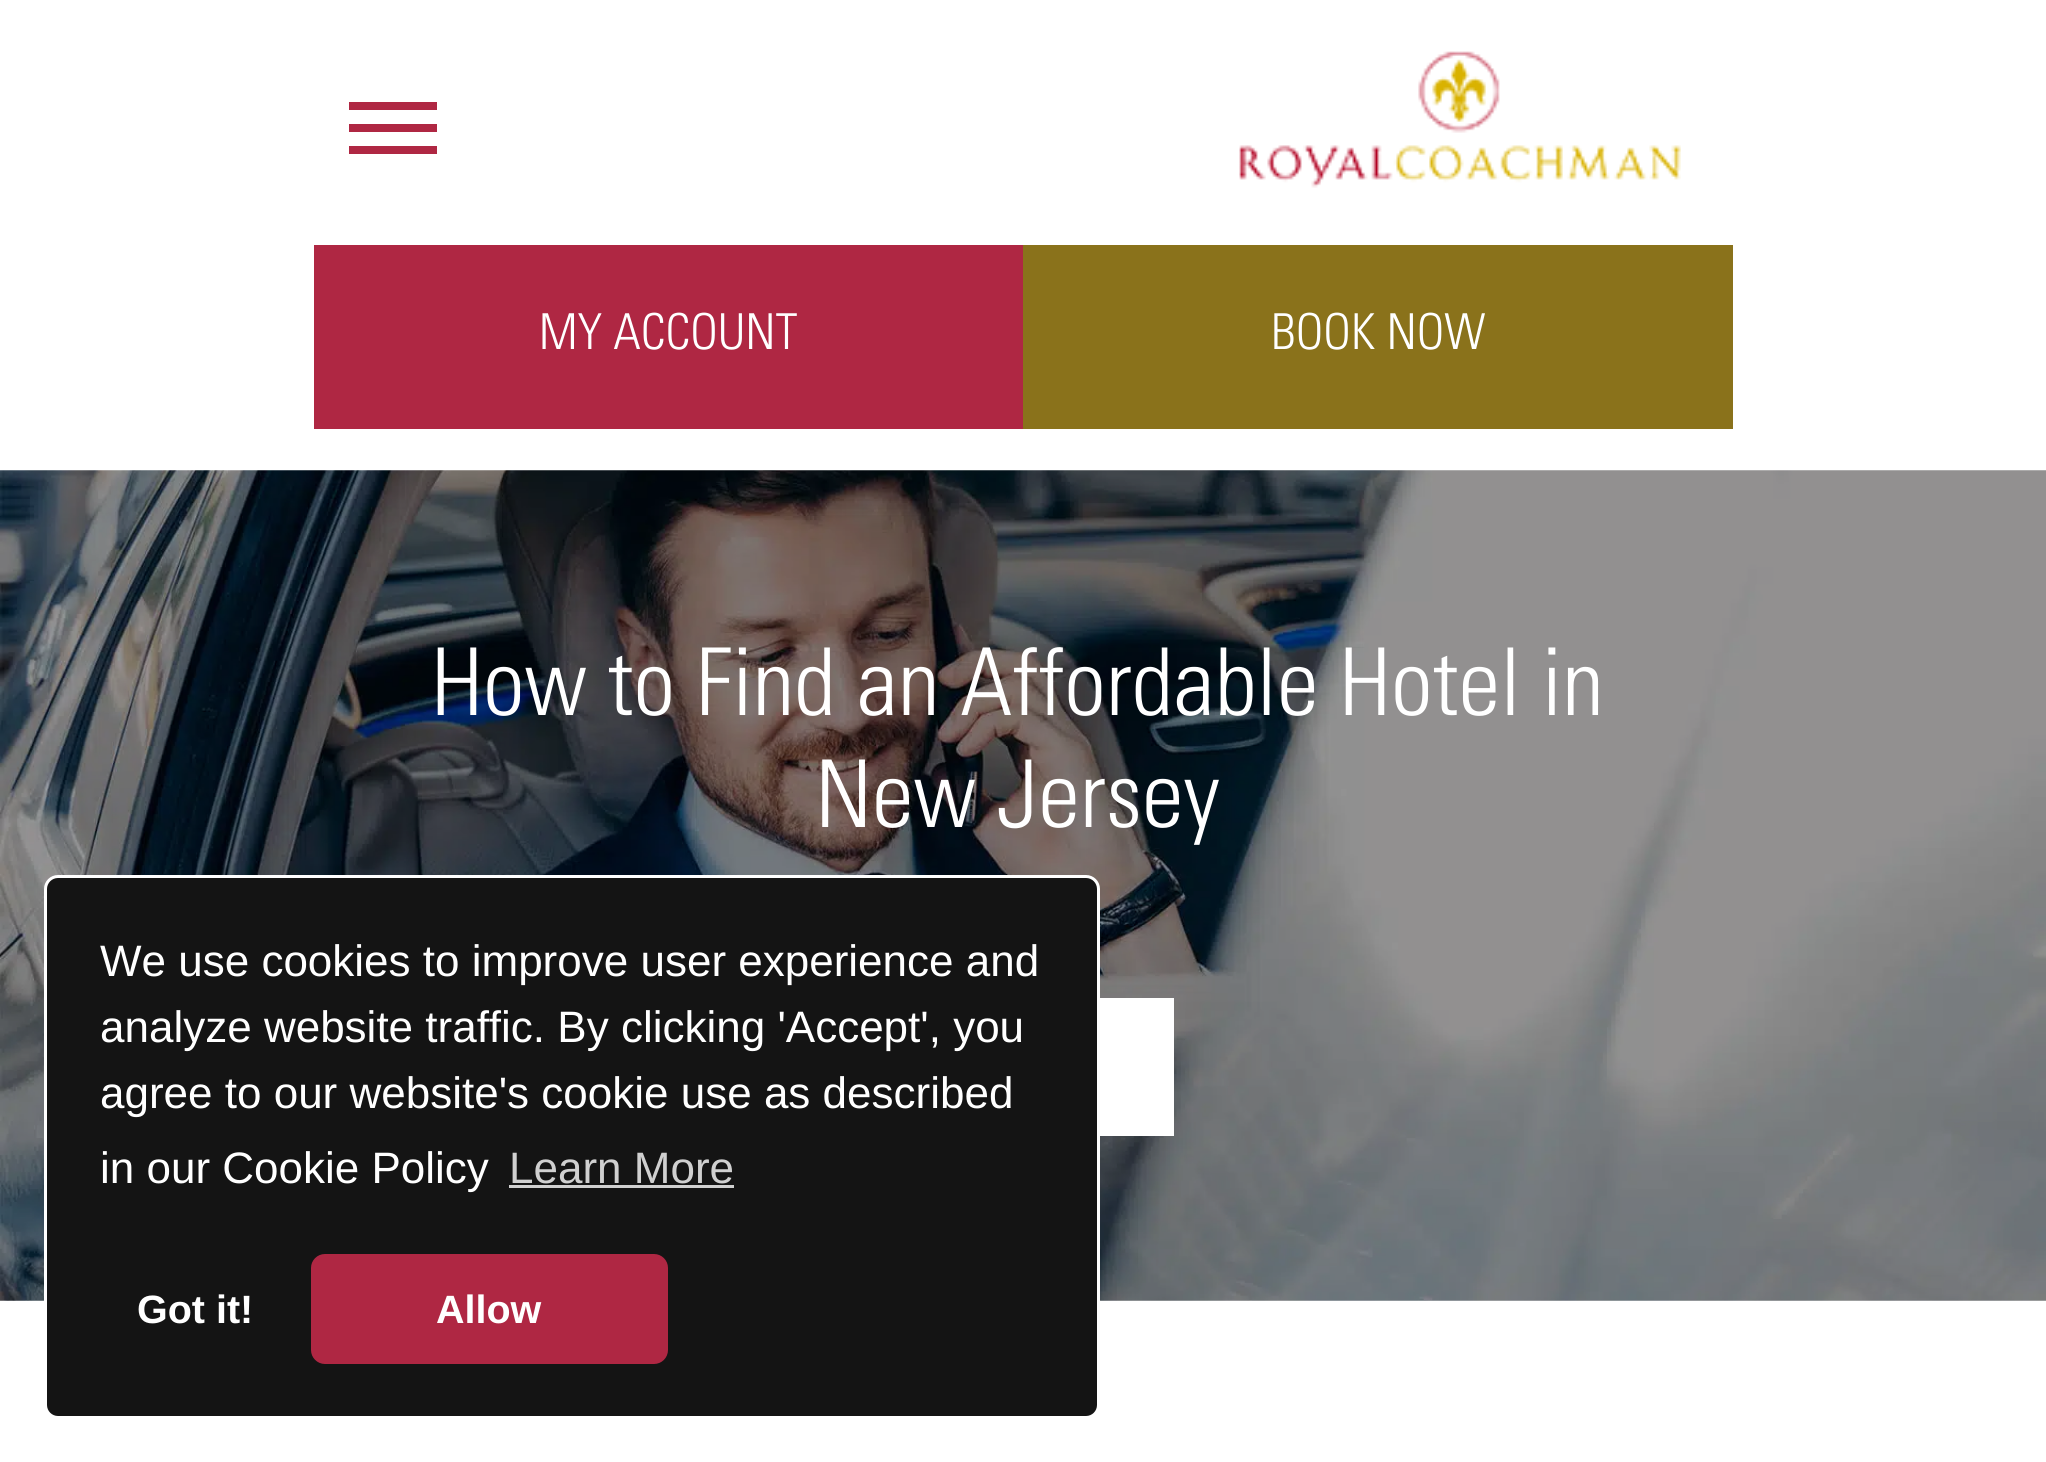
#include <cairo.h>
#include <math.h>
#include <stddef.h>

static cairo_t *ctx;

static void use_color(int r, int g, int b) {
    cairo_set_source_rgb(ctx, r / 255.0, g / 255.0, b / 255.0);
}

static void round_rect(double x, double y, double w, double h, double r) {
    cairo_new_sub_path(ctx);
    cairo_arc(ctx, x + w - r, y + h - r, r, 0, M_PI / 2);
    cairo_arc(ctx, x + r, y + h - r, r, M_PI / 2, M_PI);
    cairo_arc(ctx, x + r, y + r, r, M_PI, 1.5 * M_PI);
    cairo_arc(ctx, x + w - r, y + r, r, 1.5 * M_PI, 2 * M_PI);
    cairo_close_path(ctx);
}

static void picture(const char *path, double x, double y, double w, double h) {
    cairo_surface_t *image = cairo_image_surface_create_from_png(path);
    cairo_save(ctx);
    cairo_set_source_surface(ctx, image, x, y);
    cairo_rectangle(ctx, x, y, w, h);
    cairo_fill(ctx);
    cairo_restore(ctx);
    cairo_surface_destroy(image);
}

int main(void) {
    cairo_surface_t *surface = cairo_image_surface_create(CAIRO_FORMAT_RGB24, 2046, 1462);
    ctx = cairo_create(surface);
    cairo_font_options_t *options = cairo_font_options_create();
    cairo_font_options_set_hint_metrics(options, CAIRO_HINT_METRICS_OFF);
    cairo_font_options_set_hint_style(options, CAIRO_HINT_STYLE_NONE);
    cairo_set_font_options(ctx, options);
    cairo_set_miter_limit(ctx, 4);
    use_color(255, 255, 255);
    cairo_paint(ctx);
    use_color(175, 39, 67);
    cairo_rectangle(ctx, 349, 102, 88, 8);
    cairo_fill(ctx);
    cairo_rectangle(ctx, 349, 124, 88, 8);
    cairo_fill(ctx);
    cairo_rectangle(ctx, 349, 146, 88, 8);
    cairo_fill(ctx);
    picture("img1.png", 1239, 51, 442, 137);
    cairo_rectangle(ctx, 314, 245, 709, 184);
    cairo_fill(ctx);
    cairo_select_font_face(ctx, "Univers Light", CAIRO_FONT_SLANT_NORMAL, CAIRO_FONT_WEIGHT_NORMAL);
    cairo_set_font_size(ctx, 49.5);
    use_color(255, 255, 255);
    cairo_move_to(ctx, 539, 349);
    cairo_show_text(ctx, "MY ACCOUNT");
    use_color(138, 114, 27);
    cairo_rectangle(ctx, 1023, 245, 710, 184);
    cairo_fill(ctx);
    use_color(255, 255, 255);
    cairo_move_to(ctx, 1271, 349);
    cairo_show_text(ctx, "BOOK NOW");
    picture("img2.png", 0, 470, 2046, 831);
    cairo_set_font_size(ctx, 93.5);
    cairo_move_to(ctx, 431, 715);
    cairo_show_text(ctx, "How to Find an Affordable Hotel in");
    cairo_move_to(ctx, 815, 827);
    cairo_show_text(ctx, "New Jersey");
    cairo_rectangle(ctx, 1100, 998, 74, 138);
    cairo_fill(ctx);
    use_color(20, 20, 20);
    round_rect(45.5, 876.5, 1053, 541, 12.5);
    cairo_fill_preserve(ctx);
    use_color(255, 255, 255);
    cairo_set_line_width(ctx, 3);
    cairo_stroke(ctx);
    cairo_select_font_face(ctx, "Liberation Sans", CAIRO_FONT_SLANT_NORMAL, CAIRO_FONT_WEIGHT_NORMAL);
    cairo_set_font_size(ctx, 44);
    cairo_move_to(ctx, 100, 976);
    cairo_show_text(ctx, "We use cookies to improve user experience and");
    cairo_move_to(ctx, 100, 1042);
    cairo_show_text(ctx, "analyze website traffic. By clicking 'Accept', you");
    cairo_move_to(ctx, 100, 1108);
    cairo_show_text(ctx, "agree to our website's cookie use as described");
    cairo_move_to(ctx, 100, 1183);
    cairo_show_text(ctx, "in our Cookie Policy");
    use_color(208, 208, 208);
    cairo_move_to(ctx, 509, 1183);
    cairo_show_text(ctx, "Learn More");
    cairo_rectangle(ctx, 509, 1185, 225, 3);
    cairo_fill(ctx);
    cairo_select_font_face(ctx, "Liberation Sans", CAIRO_FONT_SLANT_NORMAL, CAIRO_FONT_WEIGHT_BOLD);
    cairo_set_font_size(ctx, 39.5);
    use_color(255, 255, 255);
    cairo_move_to(ctx, 137, 1323);
    cairo_show_text(ctx, "Got it!");
    use_color(175, 39, 67);
    round_rect(311, 1254, 357, 110, 14);
    cairo_fill(ctx);
    use_color(255, 255, 255);
    cairo_move_to(ctx, 436, 1323);
    cairo_show_text(ctx, "Allow");
    cairo_surface_write_to_png(surface, "result.png");
    cairo_font_options_destroy(options);
    cairo_destroy(ctx);
    cairo_surface_destroy(surface);
    return 0;
}
